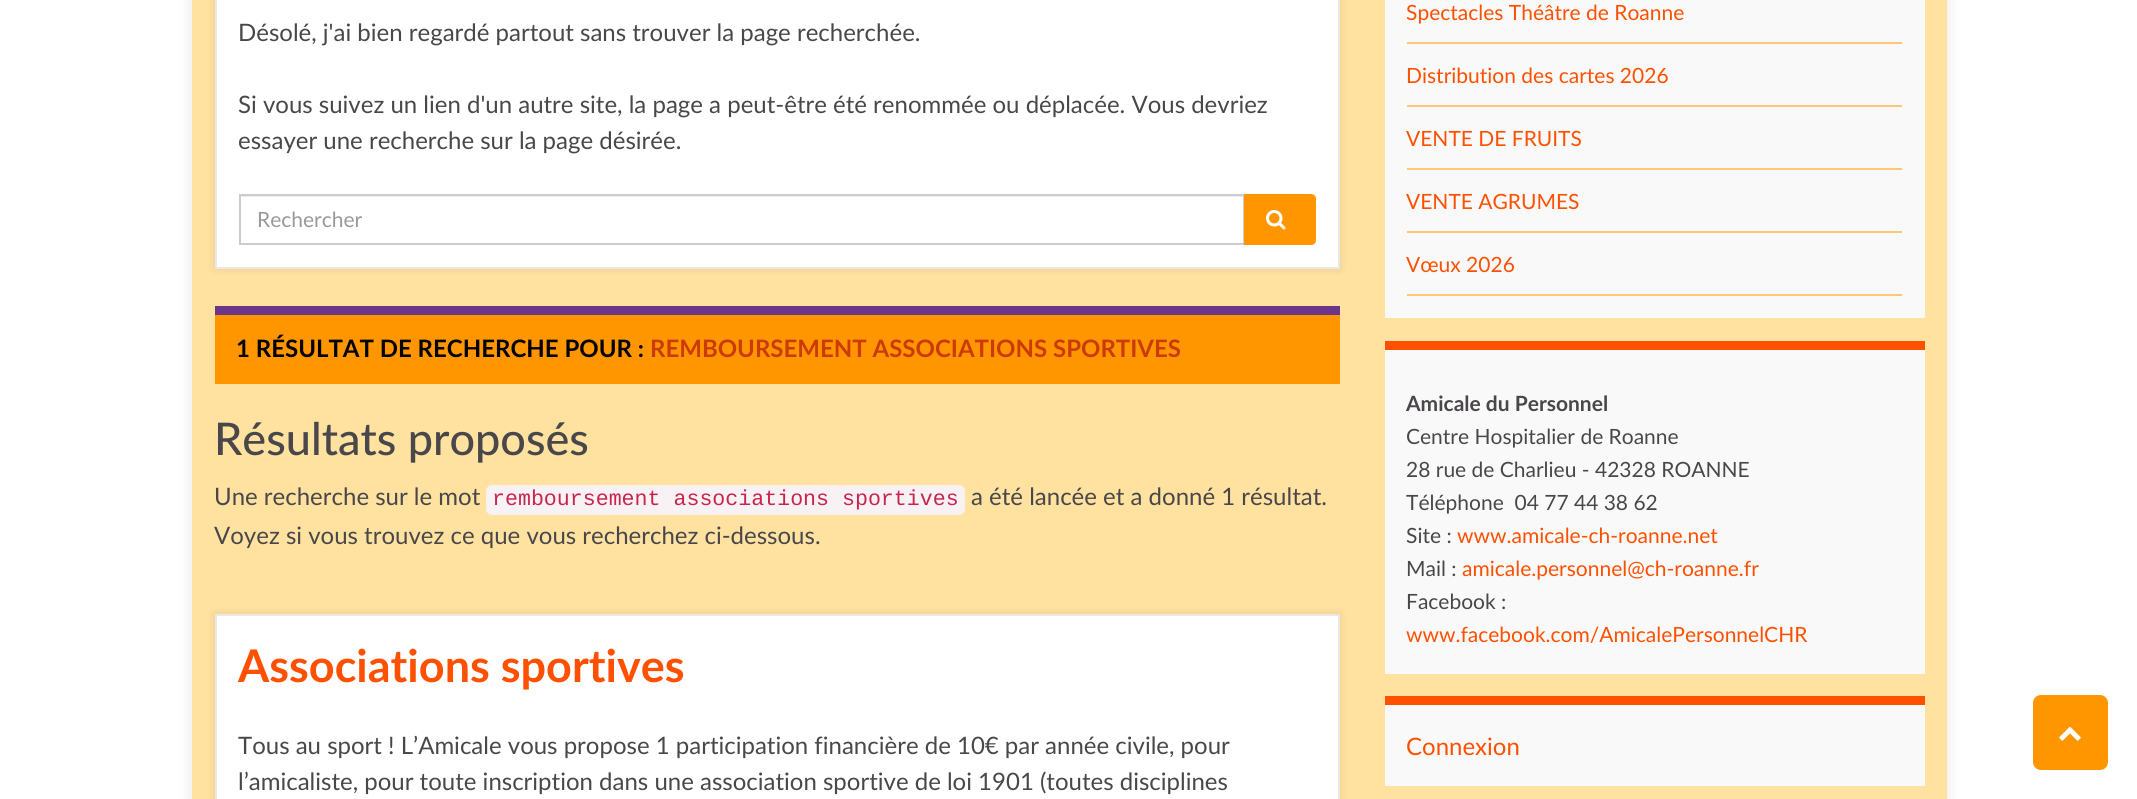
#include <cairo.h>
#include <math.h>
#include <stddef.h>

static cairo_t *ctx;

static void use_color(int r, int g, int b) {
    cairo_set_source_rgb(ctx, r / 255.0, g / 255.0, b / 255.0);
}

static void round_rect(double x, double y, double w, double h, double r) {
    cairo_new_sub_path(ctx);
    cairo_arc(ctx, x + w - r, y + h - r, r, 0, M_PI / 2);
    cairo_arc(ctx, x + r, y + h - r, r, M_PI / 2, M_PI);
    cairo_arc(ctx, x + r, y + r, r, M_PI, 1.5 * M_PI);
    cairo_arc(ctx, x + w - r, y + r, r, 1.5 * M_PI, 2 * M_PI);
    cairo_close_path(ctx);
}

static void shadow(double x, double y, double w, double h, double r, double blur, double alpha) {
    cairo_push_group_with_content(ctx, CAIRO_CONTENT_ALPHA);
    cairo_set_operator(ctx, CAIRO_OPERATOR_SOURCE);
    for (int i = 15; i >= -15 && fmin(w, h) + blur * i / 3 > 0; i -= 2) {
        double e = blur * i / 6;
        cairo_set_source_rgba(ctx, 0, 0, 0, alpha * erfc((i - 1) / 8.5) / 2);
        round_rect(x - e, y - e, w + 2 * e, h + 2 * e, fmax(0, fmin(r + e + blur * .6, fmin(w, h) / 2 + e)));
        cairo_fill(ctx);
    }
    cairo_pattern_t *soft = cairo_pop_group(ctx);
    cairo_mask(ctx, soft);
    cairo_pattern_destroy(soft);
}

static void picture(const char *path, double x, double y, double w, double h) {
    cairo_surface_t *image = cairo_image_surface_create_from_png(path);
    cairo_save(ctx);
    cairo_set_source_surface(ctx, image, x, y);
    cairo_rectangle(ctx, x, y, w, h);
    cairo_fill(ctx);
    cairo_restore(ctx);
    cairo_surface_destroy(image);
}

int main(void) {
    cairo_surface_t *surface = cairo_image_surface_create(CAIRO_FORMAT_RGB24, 2137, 799);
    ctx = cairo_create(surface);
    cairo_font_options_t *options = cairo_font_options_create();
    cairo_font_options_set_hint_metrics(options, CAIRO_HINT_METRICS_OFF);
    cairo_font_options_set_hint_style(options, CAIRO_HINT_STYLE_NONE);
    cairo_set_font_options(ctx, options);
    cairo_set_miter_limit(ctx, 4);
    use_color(255, 255, 255);
    cairo_paint(ctx);
    use_color(0, 0, 0);
    shadow(192, -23, 1755, 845, 0, 7.5, 0.1);
    use_color(255, 225, 160);
    cairo_rectangle(ctx, 192, 0, 1755, 799);
    cairo_fill(ctx);
    use_color(0, 0, 0);
    shadow(215, -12, 1125, 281, 0, 4, 0.1);
    use_color(255, 255, 255);
    cairo_rectangle(ctx, 216, -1, 1123, 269);
    cairo_fill_preserve(ctx);
    use_color(233, 232, 227);
    cairo_stroke(ctx);
    cairo_select_font_face(ctx, "Lato", CAIRO_FONT_SLANT_NORMAL, CAIRO_FONT_WEIGHT_NORMAL);
    cairo_set_font_size(ctx, 24);
    use_color(74, 71, 75);
    cairo_move_to(ctx, 238, 41);
    cairo_show_text(ctx, "Désolé, j'ai bien regardé partout sans trouver la page recherchée.");
    cairo_move_to(ctx, 238, 113);
    cairo_show_text(ctx, "Si vous suivez un lien d'un autre site, la page a peut-être été renommée ou déplacée. Vous devriez");
    cairo_move_to(ctx, 238, 149);
    cairo_show_text(ctx, "essayer une recherche sur la page désirée.");
    use_color(236, 236, 236);
    cairo_rectangle(ctx, 240, 196, 1004, 1);
    cairo_fill(ctx);
    cairo_rectangle(ctx, 240, 195, 1004, 49);
    use_color(204, 204, 204);
    cairo_stroke(ctx);
    cairo_set_font_size(ctx, 21);
    use_color(153, 153, 153);
    cairo_move_to(ctx, 257, 227);
    cairo_show_text(ctx, "Rechercher");
    use_color(255, 150, 0);
    cairo_new_path(ctx);
    cairo_move_to(ctx, 1244, 194);
    cairo_line_to(ctx, 1311, 194);
    cairo_curve_to(ctx, 1314, 194, 1316, 196, 1316, 199);
    cairo_line_to(ctx, 1316, 240);
    cairo_curve_to(ctx, 1316, 243, 1314, 245, 1311, 245);
    cairo_line_to(ctx, 1244, 245);
    cairo_close_path(ctx);
    cairo_fill(ctx);
    picture("img1.png", 1266, 210, 20, 20);
    cairo_rectangle(ctx, 215, 315, 1125, 69);
    cairo_fill(ctx);
    use_color(107, 53, 137);
    cairo_rectangle(ctx, 215, 306, 1125, 9);
    cairo_fill(ctx);
    cairo_select_font_face(ctx, "Lato", CAIRO_FONT_SLANT_NORMAL, CAIRO_FONT_WEIGHT_BOLD);
    cairo_set_font_size(ctx, 24);
    use_color(0, 0, 0);
    cairo_move_to(ctx, 236, 357);
    cairo_show_text(ctx, "1 RÉSULTAT DE RECHERCHE POUR :");
    use_color(204, 58, 6);
    cairo_move_to(ctx, 650, 357);
    cairo_show_text(ctx, "REMBOURSEMENT ASSOCIATIONS SPORTIVES");
    cairo_select_font_face(ctx, "Lato Medium", CAIRO_FONT_SLANT_NORMAL, CAIRO_FONT_WEIGHT_NORMAL);
    cairo_set_font_size(ctx, 45);
    use_color(74, 71, 75);
    cairo_move_to(ctx, 214, 455);
    cairo_show_text(ctx, "Résultats proposés");
    cairo_select_font_face(ctx, "Lato", CAIRO_FONT_SLANT_NORMAL, CAIRO_FONT_WEIGHT_NORMAL);
    cairo_set_font_size(ctx, 24);
    cairo_move_to(ctx, 214, 505);
    cairo_show_text(ctx, "Une recherche sur le mot");
    use_color(249, 242, 244);
    round_rect(486, 485, 479, 30, 6);
    cairo_fill(ctx);
    cairo_select_font_face(ctx, "Liberation Mono", CAIRO_FONT_SLANT_NORMAL, CAIRO_FONT_WEIGHT_NORMAL);
    cairo_set_font_size(ctx, 21.6);
    use_color(199, 37, 78);
    cairo_move_to(ctx, 492, 505);
    cairo_show_text(ctx, "remboursement associations sportives");
    cairo_select_font_face(ctx, "Lato", CAIRO_FONT_SLANT_NORMAL, CAIRO_FONT_WEIGHT_NORMAL);
    cairo_set_font_size(ctx, 24);
    use_color(74, 71, 75);
    cairo_move_to(ctx, 971, 505);
    cairo_show_text(ctx, "a été lancée et a donné 1 résultat.");
    cairo_move_to(ctx, 214, 544);
    cairo_show_text(ctx, "Voyez si vous trouvez ce que vous recherchez ci-dessous.");
    use_color(0, 0, 0);
    shadow(215, 614, 1125, 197, 0, 4, 0.1);
    use_color(255, 255, 255);
    cairo_rectangle(ctx, 216, 615, 1123, 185);
    cairo_fill_preserve(ctx);
    use_color(233, 232, 227);
    cairo_stroke(ctx);
    cairo_select_font_face(ctx, "Lato", CAIRO_FONT_SLANT_NORMAL, CAIRO_FONT_WEIGHT_BOLD);
    cairo_set_font_size(ctx, 45);
    use_color(255, 80, 0);
    cairo_move_to(ctx, 238, 682);
    cairo_show_text(ctx, "Associations sportives");
    cairo_select_font_face(ctx, "Lato", CAIRO_FONT_SLANT_NORMAL, CAIRO_FONT_WEIGHT_NORMAL);
    cairo_set_font_size(ctx, 24);
    use_color(74, 71, 75);
    cairo_move_to(ctx, 238, 754);
    cairo_show_text(ctx, "Tous au sport ! L’Amicale vous propose 1 participation financière de 10€ par année civile, pour");
    cairo_move_to(ctx, 238, 790);
    cairo_show_text(ctx, "l’amicaliste, pour toute inscription dans une association sportive de loi 1901 (toutes disciplines");
    use_color(249, 249, 249);
    cairo_rectangle(ctx, 1385, 0, 540, 318);
    cairo_fill(ctx);
    use_color(254, 199, 119);
    cairo_rectangle(ctx, 1407, 42, 495, 2);
    cairo_fill(ctx);
    cairo_set_font_size(ctx, 21);
    use_color(255, 80, 0);
    cairo_move_to(ctx, 1406, 20);
    cairo_show_text(ctx, "Spectacles Théâtre de Roanne");
    use_color(254, 199, 119);
    cairo_rectangle(ctx, 1407, 105, 495, 2);
    cairo_fill(ctx);
    use_color(255, 80, 0);
    cairo_move_to(ctx, 1406, 83);
    cairo_show_text(ctx, "Distribution des cartes 2026");
    use_color(254, 199, 119);
    cairo_rectangle(ctx, 1407, 168, 495, 2);
    cairo_fill(ctx);
    use_color(255, 80, 0);
    cairo_move_to(ctx, 1406, 146);
    cairo_show_text(ctx, "VENTE DE FRUITS");
    use_color(254, 199, 119);
    cairo_rectangle(ctx, 1407, 231, 495, 2);
    cairo_fill(ctx);
    use_color(255, 80, 0);
    cairo_move_to(ctx, 1406, 209);
    cairo_show_text(ctx, "VENTE AGRUMES");
    use_color(254, 199, 119);
    cairo_rectangle(ctx, 1407, 294, 495, 2);
    cairo_fill(ctx);
    use_color(255, 80, 0);
    cairo_move_to(ctx, 1406, 272);
    cairo_show_text(ctx, "Vœux 2026");
    use_color(249, 249, 249);
    cairo_rectangle(ctx, 1385, 350, 540, 324);
    cairo_fill(ctx);
    use_color(255, 80, 0);
    cairo_rectangle(ctx, 1385, 341, 540, 9);
    cairo_fill(ctx);
    cairo_select_font_face(ctx, "Lato", CAIRO_FONT_SLANT_NORMAL, CAIRO_FONT_WEIGHT_BOLD);
    use_color(74, 71, 75);
    cairo_move_to(ctx, 1406, 411);
    cairo_show_text(ctx, "Amicale du Personnel");
    cairo_select_font_face(ctx, "Lato", CAIRO_FONT_SLANT_NORMAL, CAIRO_FONT_WEIGHT_NORMAL);
    cairo_move_to(ctx, 1406, 444);
    cairo_show_text(ctx, "Centre Hospitalier de Roanne");
    cairo_move_to(ctx, 1406, 477);
    cairo_show_text(ctx, "28 rue de Charlieu - 42328 ROANNE");
    cairo_move_to(ctx, 1406, 510);
    cairo_show_text(ctx, "Téléphone  04 77 44 38 62");
    cairo_move_to(ctx, 1406, 543);
    cairo_show_text(ctx, "Site :");
    use_color(255, 80, 0);
    cairo_move_to(ctx, 1457, 543);
    cairo_show_text(ctx, "www.amicale-ch-roanne.net");
    use_color(74, 71, 75);
    cairo_move_to(ctx, 1406, 576);
    cairo_show_text(ctx, "Mail :");
    use_color(255, 80, 0);
    cairo_move_to(ctx, 1462, 576);
    cairo_show_text(ctx, "amicale.personnel@ch-roanne.fr");
    use_color(74, 71, 75);
    cairo_move_to(ctx, 1406, 609);
    cairo_show_text(ctx, "Facebook :");
    use_color(255, 80, 0);
    cairo_move_to(ctx, 1406, 642);
    cairo_show_text(ctx, "www.facebook.com/AmicalePersonnelCHR");
    use_color(249, 249, 249);
    cairo_rectangle(ctx, 1385, 705, 540, 81);
    cairo_fill(ctx);
    use_color(255, 80, 0);
    cairo_rectangle(ctx, 1385, 696, 540, 9);
    cairo_fill(ctx);
    cairo_set_font_size(ctx, 24);
    cairo_move_to(ctx, 1406, 755);
    cairo_show_text(ctx, "Connexion");
    use_color(255, 150, 0);
    round_rect(2033, 695, 75, 75, 8);
    cairo_fill(ctx);
    picture("img2.png", 2059, 726, 22, 15);
    cairo_surface_write_to_png(surface, "result.png");
    cairo_font_options_destroy(options);
    cairo_destroy(ctx);
    cairo_surface_destroy(surface);
    return 0;
}
